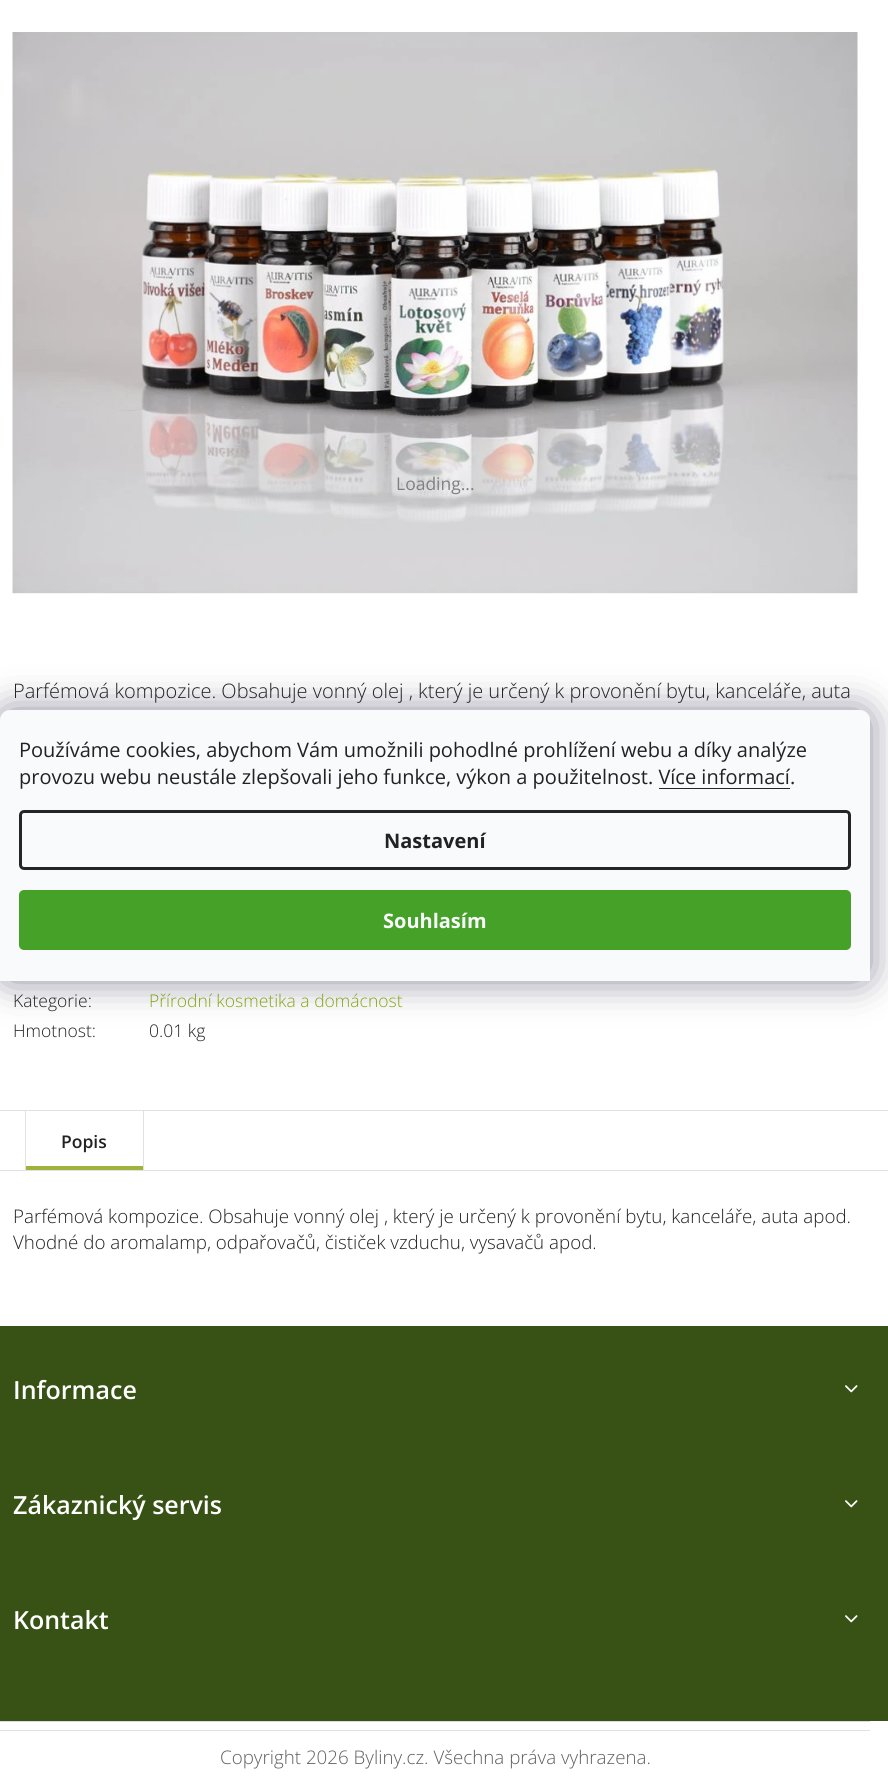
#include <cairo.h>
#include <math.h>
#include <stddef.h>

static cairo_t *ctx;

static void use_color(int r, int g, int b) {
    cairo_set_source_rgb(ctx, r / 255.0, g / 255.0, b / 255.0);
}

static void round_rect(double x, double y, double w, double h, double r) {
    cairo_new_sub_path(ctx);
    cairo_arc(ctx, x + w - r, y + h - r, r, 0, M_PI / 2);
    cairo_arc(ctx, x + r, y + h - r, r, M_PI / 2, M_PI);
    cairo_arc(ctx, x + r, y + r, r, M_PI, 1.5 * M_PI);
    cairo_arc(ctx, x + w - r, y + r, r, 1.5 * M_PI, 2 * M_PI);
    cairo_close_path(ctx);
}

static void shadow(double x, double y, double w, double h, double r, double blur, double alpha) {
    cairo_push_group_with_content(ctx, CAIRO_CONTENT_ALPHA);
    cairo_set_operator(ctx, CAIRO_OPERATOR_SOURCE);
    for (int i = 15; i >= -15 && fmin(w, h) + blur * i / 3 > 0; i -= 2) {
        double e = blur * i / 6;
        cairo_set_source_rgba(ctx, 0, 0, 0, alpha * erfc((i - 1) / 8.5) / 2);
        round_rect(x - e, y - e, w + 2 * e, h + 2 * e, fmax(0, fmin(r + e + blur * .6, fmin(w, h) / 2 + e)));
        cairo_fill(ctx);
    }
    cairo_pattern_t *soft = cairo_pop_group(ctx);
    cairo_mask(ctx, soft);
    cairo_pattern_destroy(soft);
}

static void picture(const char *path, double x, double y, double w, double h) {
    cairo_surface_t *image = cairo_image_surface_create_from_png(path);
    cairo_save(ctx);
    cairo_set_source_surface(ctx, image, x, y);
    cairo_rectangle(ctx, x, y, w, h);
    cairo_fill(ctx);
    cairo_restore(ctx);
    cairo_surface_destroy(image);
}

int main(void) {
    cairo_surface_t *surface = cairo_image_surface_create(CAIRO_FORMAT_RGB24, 888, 1776);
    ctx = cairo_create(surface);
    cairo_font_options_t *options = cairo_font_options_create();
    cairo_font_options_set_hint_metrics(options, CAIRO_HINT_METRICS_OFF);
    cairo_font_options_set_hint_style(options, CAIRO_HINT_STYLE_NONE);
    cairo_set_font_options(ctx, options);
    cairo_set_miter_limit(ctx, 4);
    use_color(255, 255, 255);
    cairo_paint(ctx);
    picture("img1.png", 12, 32, 846, 562);
    cairo_select_font_face(ctx, "Open Sans", CAIRO_FONT_SLANT_NORMAL, CAIRO_FONT_WEIGHT_NORMAL);
    cairo_set_font_size(ctx, 17.5);
    use_color(128, 128, 129);
    cairo_move_to(ctx, 396, 490);
    cairo_show_text(ctx, "Loading...");
    cairo_select_font_face(ctx, "Open Sans Light", CAIRO_FONT_SLANT_NORMAL, CAIRO_FONT_WEIGHT_NORMAL);
    cairo_set_font_size(ctx, 20);
    use_color(34, 34, 34);
    cairo_move_to(ctx, 13, 698);
    cairo_show_text(ctx, "Parfémová kompozice. Obsahuje vonný olej , který je určený k provonění bytu, kanceláře, auta");
    cairo_set_font_size(ctx, 17.5);
    cairo_move_to(ctx, 13, 1007);
    cairo_show_text(ctx, "Kategorie:");
    use_color(142, 174, 18);
    cairo_move_to(ctx, 149, 1007);
    cairo_show_text(ctx, "Přírodní kosmetika a domácnost");
    use_color(34, 34, 34);
    cairo_move_to(ctx, 13, 1037);
    cairo_show_text(ctx, "Hmotnost:");
    cairo_move_to(ctx, 149, 1037);
    cairo_show_text(ctx, "0.01 kg");
    use_color(225, 225, 225);
    cairo_rectangle(ctx, 0, 1110, 888, 1);
    cairo_fill(ctx);
    cairo_rectangle(ctx, 0, 1170, 888, 1);
    cairo_fill(ctx);
    cairo_rectangle(ctx, 143, 1111, 1, 59);
    cairo_fill(ctx);
    cairo_rectangle(ctx, 25, 1111, 1, 59);
    cairo_fill(ctx);
    cairo_select_font_face(ctx, "Open Sans SemiBold", CAIRO_FONT_SLANT_NORMAL, CAIRO_FONT_WEIGHT_NORMAL);
    use_color(34, 34, 34);
    cairo_move_to(ctx, 61, 1148);
    cairo_show_text(ctx, "Popis");
    use_color(159, 178, 60);
    cairo_rectangle(ctx, 26, 1166, 117, 4);
    cairo_fill(ctx);
    cairo_select_font_face(ctx, "Open Sans Light", CAIRO_FONT_SLANT_NORMAL, CAIRO_FONT_WEIGHT_NORMAL);
    cairo_set_font_size(ctx, 18.75);
    use_color(34, 34, 34);
    cairo_move_to(ctx, 13, 1223);
    cairo_show_text(ctx, "Parfémová kompozice. Obsahuje vonný olej , který je určený k provonění bytu, kanceláře, auta apod.");
    cairo_move_to(ctx, 13, 1249);
    cairo_show_text(ctx, "Vhodné do aromalamp, odpařovačů, čističek vzduchu, vysavačů apod.");
    use_color(55, 82, 20);
    cairo_rectangle(ctx, 0, 1326, 888, 395);
    cairo_fill(ctx);
    cairo_select_font_face(ctx, "Open Sans SemiBold", CAIRO_FONT_SLANT_NORMAL, CAIRO_FONT_WEIGHT_NORMAL);
    cairo_set_font_size(ctx, 25);
    use_color(255, 255, 255);
    cairo_move_to(ctx, 13, 1399);
    cairo_show_text(ctx, "Informace");
    picture("img2.png", 845, 1385, 13, 8);
    cairo_move_to(ctx, 13, 1514);
    cairo_show_text(ctx, "Zákaznický servis");
    picture("img2.png", 845, 1500, 13, 8);
    cairo_move_to(ctx, 13, 1629);
    cairo_show_text(ctx, "Kontakt");
    picture("img2.png", 845, 1615, 13, 8);
    use_color(27, 25, 57);
    shadow(0, 710, 870, 271, 10, 19, 0.5);
    use_color(248, 250, 251);
    cairo_new_path(ctx);
    cairo_move_to(ctx, 10, 710);
    cairo_line_to(ctx, 860, 710);
    cairo_curve_to(ctx, 865.5, 710, 870, 714.5, 870, 720);
    cairo_line_to(ctx, 870, 981);
    cairo_line_to(ctx, 0, 981);
    cairo_line_to(ctx, 0, 720);
    cairo_curve_to(ctx, 0, 714.5, 4.5, 710, 10, 710);
    cairo_close_path(ctx);
    cairo_fill(ctx);
    cairo_select_font_face(ctx, "Open Sans", CAIRO_FONT_SLANT_NORMAL, CAIRO_FONT_WEIGHT_NORMAL);
    cairo_set_font_size(ctx, 20);
    use_color(34, 34, 34);
    cairo_move_to(ctx, 19, 757);
    cairo_show_text(ctx, "Používáme cookies, abychom Vám umožnili pohodlné prohlížení webu a díky analýze");
    cairo_move_to(ctx, 19, 784);
    cairo_show_text(ctx, "provozu webu neustále zlepšovali jeho funkce, výkon a použitelnost. Více informací.");
    use_color(37, 37, 37);
    cairo_rectangle(ctx, 659, 788, 131, 1);
    cairo_fill(ctx);
    round_rect(20.5, 811.5, 829, 57, 3.5);
    cairo_set_line_width(ctx, 3);
    cairo_stroke(ctx);
    cairo_select_font_face(ctx, "Open Sans", CAIRO_FONT_SLANT_NORMAL, CAIRO_FONT_WEIGHT_BOLD);
    use_color(34, 34, 34);
    cairo_move_to(ctx, 384, 848);
    cairo_show_text(ctx, "Nastavení");
    use_color(70, 161, 40);
    round_rect(19, 890, 832, 60, 5);
    cairo_fill(ctx);
    use_color(248, 250, 251);
    cairo_move_to(ctx, 383, 928);
    cairo_show_text(ctx, "Souhlasím");
    use_color(218, 218, 218);
    cairo_rectangle(ctx, 0, 1721, 870, 1);
    cairo_fill(ctx);
    use_color(225, 225, 225);
    cairo_rectangle(ctx, 0, 1730, 870, 1);
    cairo_fill(ctx);
    cairo_select_font_face(ctx, "Open Sans Light", CAIRO_FONT_SLANT_NORMAL, CAIRO_FONT_WEIGHT_NORMAL);
    cairo_set_font_size(ctx, 18.75);
    use_color(95, 95, 95);
    cairo_move_to(ctx, 220, 1764);
    cairo_show_text(ctx, "Copyright 2026 Byliny.cz. Všechna práva vyhrazena.");
    cairo_surface_write_to_png(surface, "result.png");
    cairo_font_options_destroy(options);
    cairo_destroy(ctx);
    cairo_surface_destroy(surface);
    return 0;
}
